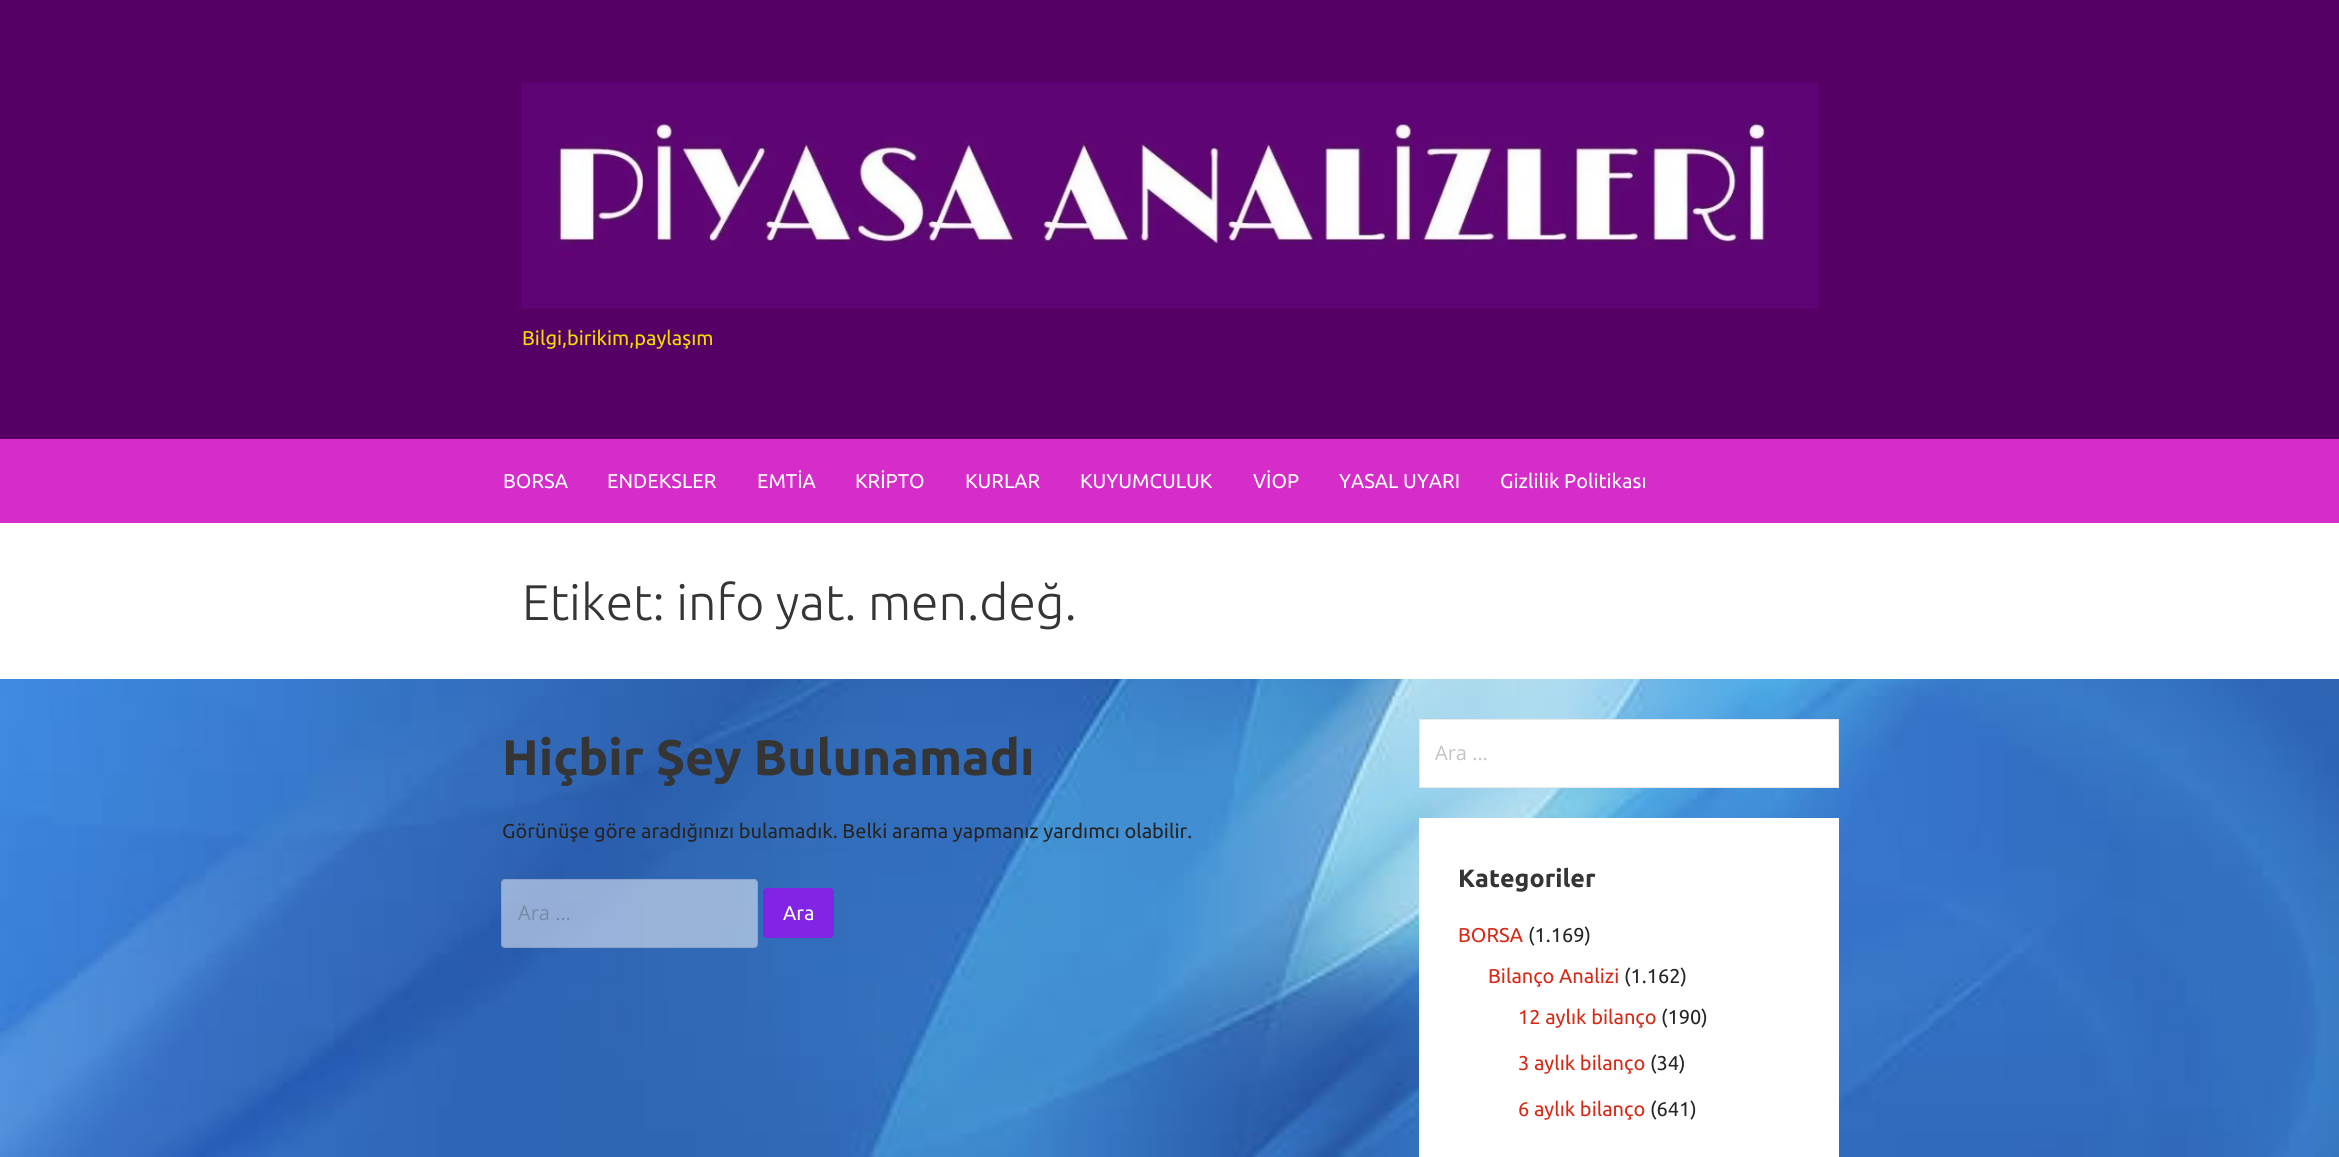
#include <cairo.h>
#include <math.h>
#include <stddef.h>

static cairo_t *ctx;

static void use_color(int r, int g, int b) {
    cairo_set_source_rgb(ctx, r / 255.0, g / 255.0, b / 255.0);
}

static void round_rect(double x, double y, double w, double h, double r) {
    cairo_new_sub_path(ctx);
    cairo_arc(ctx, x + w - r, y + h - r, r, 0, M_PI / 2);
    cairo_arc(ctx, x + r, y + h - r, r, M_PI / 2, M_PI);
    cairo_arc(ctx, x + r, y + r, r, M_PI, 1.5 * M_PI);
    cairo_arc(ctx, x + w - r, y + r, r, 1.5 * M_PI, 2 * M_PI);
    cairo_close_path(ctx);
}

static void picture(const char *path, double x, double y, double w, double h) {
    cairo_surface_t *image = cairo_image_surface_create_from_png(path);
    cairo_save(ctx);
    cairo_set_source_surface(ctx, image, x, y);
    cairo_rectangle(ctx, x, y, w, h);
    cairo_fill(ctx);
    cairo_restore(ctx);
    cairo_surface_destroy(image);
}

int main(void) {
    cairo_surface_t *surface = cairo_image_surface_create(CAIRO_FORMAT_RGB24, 2339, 1157);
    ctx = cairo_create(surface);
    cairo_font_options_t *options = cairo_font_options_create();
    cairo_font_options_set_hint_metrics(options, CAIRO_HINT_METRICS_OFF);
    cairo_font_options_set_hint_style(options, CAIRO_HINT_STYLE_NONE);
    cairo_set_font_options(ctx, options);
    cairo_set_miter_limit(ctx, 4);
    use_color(255, 255, 255);
    cairo_paint(ctx);
    picture("img1.png", 0, 679, 2339, 478);
    use_color(86, 0, 102);
    cairo_rectangle(ctx, 0, 0, 2339, 439);
    cairo_fill(ctx);
    picture("img2.png", 521, 82, 1298, 227);
    cairo_select_font_face(ctx, "Ubuntu", CAIRO_FONT_SLANT_NORMAL, CAIRO_FONT_WEIGHT_NORMAL);
    cairo_set_font_size(ctx, 20);
    use_color(237, 221, 0);
    cairo_move_to(ctx, 522, 345);
    cairo_show_text(ctx, "Bilgi,birikim,paylaşım");
    use_color(214, 44, 202);
    cairo_rectangle(ctx, 0, 439, 2339, 84);
    cairo_fill(ctx);
    use_color(255, 255, 255);
    cairo_move_to(ctx, 503, 488);
    cairo_show_text(ctx, "BORSA");
    cairo_move_to(ctx, 607, 488);
    cairo_show_text(ctx, "ENDEKSLER");
    cairo_move_to(ctx, 757, 488);
    cairo_show_text(ctx, "EMTİA");
    cairo_move_to(ctx, 855, 488);
    cairo_show_text(ctx, "KRİPTO");
    cairo_move_to(ctx, 965, 488);
    cairo_show_text(ctx, "KURLAR");
    cairo_move_to(ctx, 1080, 488);
    cairo_show_text(ctx, "KUYUMCULUK");
    cairo_move_to(ctx, 1253, 488);
    cairo_show_text(ctx, "VİOP");
    cairo_move_to(ctx, 1339, 488);
    cairo_show_text(ctx, "YASAL UYARI");
    cairo_move_to(ctx, 1500, 488);
    cairo_show_text(ctx, "Gizlilik Politikası");
    cairo_select_font_face(ctx, "Ubuntu Light", CAIRO_FONT_SLANT_NORMAL, CAIRO_FONT_WEIGHT_NORMAL);
    cairo_set_font_size(ctx, 50);
    use_color(53, 53, 53);
    cairo_move_to(ctx, 522, 620);
    cairo_show_text(ctx, "Etiket: info yat. men.değ.");
    cairo_select_font_face(ctx, "Ubuntu", CAIRO_FONT_SLANT_NORMAL, CAIRO_FONT_WEIGHT_BOLD);
    cairo_move_to(ctx, 502, 775);
    cairo_show_text(ctx, "Hiçbir Şey Bulunamadı");
    cairo_select_font_face(ctx, "Ubuntu", CAIRO_FONT_SLANT_NORMAL, CAIRO_FONT_WEIGHT_NORMAL);
    cairo_set_font_size(ctx, 20);
    use_color(37, 37, 37);
    cairo_move_to(ctx, 502, 838);
    cairo_show_text(ctx, "Görünüşe göre aradığınızı bulamadık. Belki arama yapmanız yardımcı olabilir.");
    cairo_set_source_rgba(ctx, 1, 1, 1, 0.5);
    round_rect(501, 879, 257, 69, 4);
    cairo_fill(ctx);
    round_rect(501.5, 879.5, 256, 68, 3.5);
    cairo_set_source_rgba(ctx, 0.145, 0.145, 0.145, 0.1);
    cairo_set_line_width(ctx, 1);
    cairo_stroke(ctx);
    cairo_select_font_face(ctx, "Open Sans", CAIRO_FONT_SLANT_NORMAL, CAIRO_FONT_WEIGHT_NORMAL);
    use_color(118, 137, 167);
    cairo_move_to(ctx, 518, 920);
    cairo_show_text(ctx, "Ara …");
    use_color(130, 36, 227);
    round_rect(763, 888, 71, 50, 4);
    cairo_fill(ctx);
    cairo_select_font_face(ctx, "Ubuntu", CAIRO_FONT_SLANT_NORMAL, CAIRO_FONT_WEIGHT_NORMAL);
    use_color(255, 255, 255);
    cairo_move_to(ctx, 783, 920);
    cairo_show_text(ctx, "Ara");
    cairo_rectangle(ctx, 1419.5, 719.5, 419, 68);
    cairo_fill_preserve(ctx);
    use_color(233, 233, 233);
    cairo_stroke(ctx);
    cairo_select_font_face(ctx, "Open Sans", CAIRO_FONT_SLANT_NORMAL, CAIRO_FONT_WEIGHT_NORMAL);
    use_color(196, 196, 196);
    cairo_move_to(ctx, 1435, 760);
    cairo_show_text(ctx, "Ara …");
    use_color(255, 255, 255);
    cairo_rectangle(ctx, 1419, 818, 420, 339);
    cairo_fill(ctx);
    cairo_select_font_face(ctx, "Ubuntu", CAIRO_FONT_SLANT_NORMAL, CAIRO_FONT_WEIGHT_BOLD);
    cairo_set_font_size(ctx, 25);
    use_color(53, 53, 53);
    cairo_move_to(ctx, 1458, 887);
    cairo_show_text(ctx, "Kategoriler");
    cairo_select_font_face(ctx, "Ubuntu", CAIRO_FONT_SLANT_NORMAL, CAIRO_FONT_WEIGHT_NORMAL);
    cairo_set_font_size(ctx, 20);
    use_color(214, 42, 23);
    cairo_move_to(ctx, 1458, 942);
    cairo_show_text(ctx, "BORSA");
    use_color(37, 37, 37);
    cairo_move_to(ctx, 1528, 942);
    cairo_show_text(ctx, "(1.169)");
    use_color(214, 42, 23);
    cairo_move_to(ctx, 1488, 983);
    cairo_show_text(ctx, "Bilanço Analizi");
    use_color(37, 37, 37);
    cairo_move_to(ctx, 1624, 983);
    cairo_show_text(ctx, "(1.162)");
    use_color(214, 42, 23);
    cairo_move_to(ctx, 1518, 1024);
    cairo_show_text(ctx, "12 aylık bilanço");
    use_color(37, 37, 37);
    cairo_move_to(ctx, 1661, 1024);
    cairo_show_text(ctx, "(190)");
    use_color(214, 42, 23);
    cairo_move_to(ctx, 1518, 1070);
    cairo_show_text(ctx, "3 aylık bilanço");
    use_color(37, 37, 37);
    cairo_move_to(ctx, 1650, 1070);
    cairo_show_text(ctx, "(34)");
    use_color(214, 42, 23);
    cairo_move_to(ctx, 1518, 1116);
    cairo_show_text(ctx, "6 aylık bilanço");
    use_color(37, 37, 37);
    cairo_move_to(ctx, 1650, 1116);
    cairo_show_text(ctx, "(641)");
    cairo_surface_write_to_png(surface, "result.png");
    cairo_font_options_destroy(options);
    cairo_destroy(ctx);
    cairo_surface_destroy(surface);
    return 0;
}
